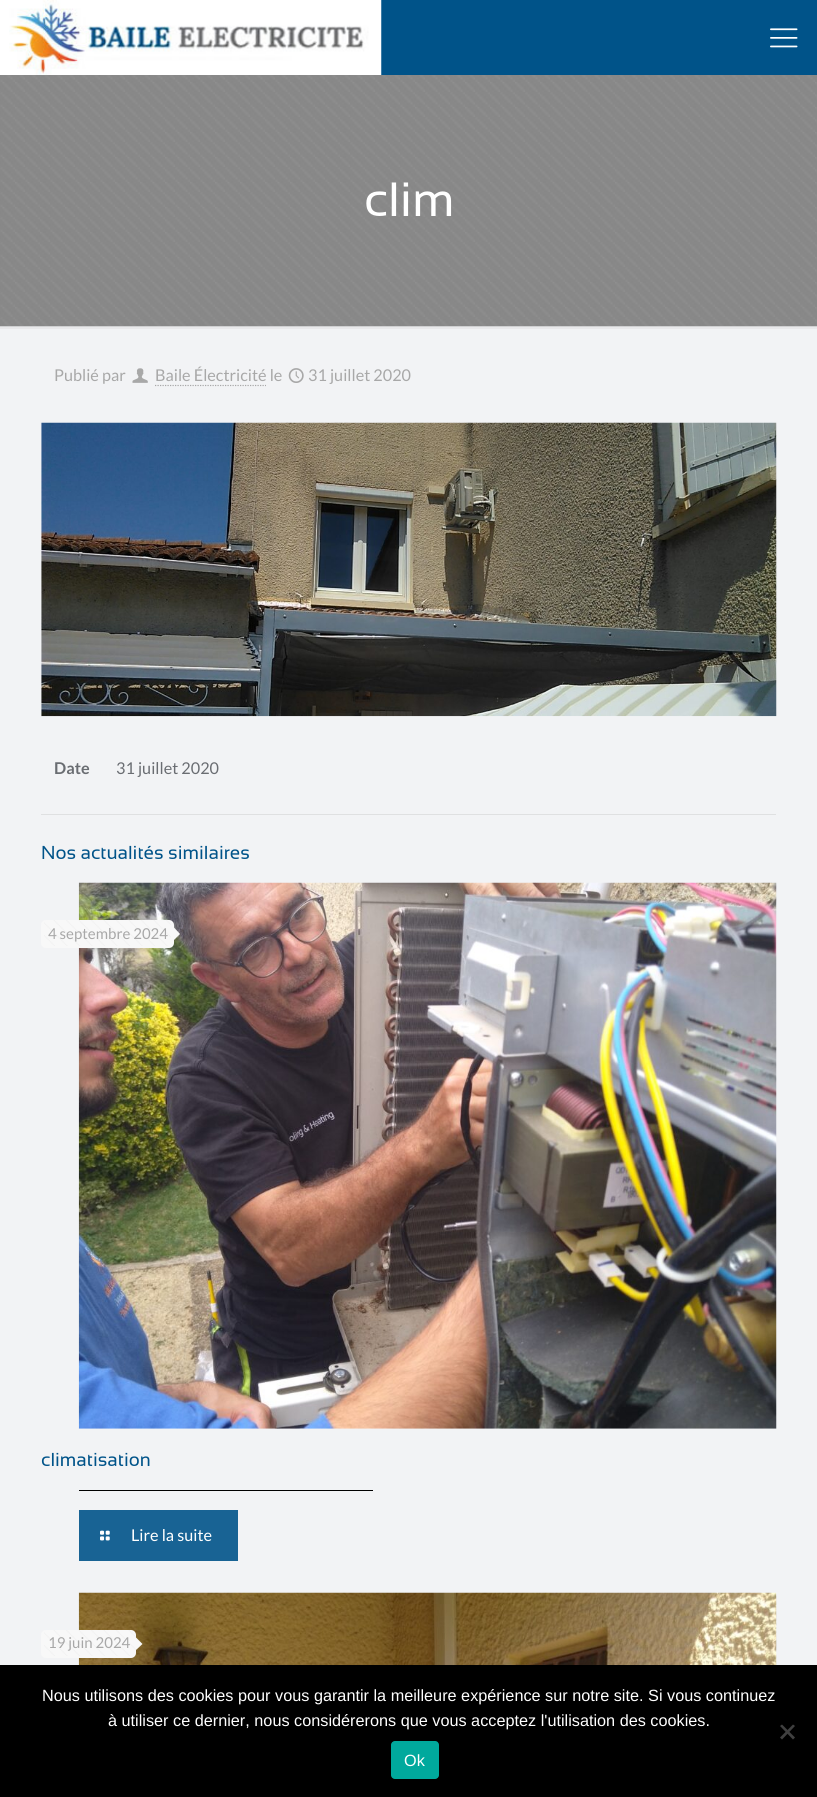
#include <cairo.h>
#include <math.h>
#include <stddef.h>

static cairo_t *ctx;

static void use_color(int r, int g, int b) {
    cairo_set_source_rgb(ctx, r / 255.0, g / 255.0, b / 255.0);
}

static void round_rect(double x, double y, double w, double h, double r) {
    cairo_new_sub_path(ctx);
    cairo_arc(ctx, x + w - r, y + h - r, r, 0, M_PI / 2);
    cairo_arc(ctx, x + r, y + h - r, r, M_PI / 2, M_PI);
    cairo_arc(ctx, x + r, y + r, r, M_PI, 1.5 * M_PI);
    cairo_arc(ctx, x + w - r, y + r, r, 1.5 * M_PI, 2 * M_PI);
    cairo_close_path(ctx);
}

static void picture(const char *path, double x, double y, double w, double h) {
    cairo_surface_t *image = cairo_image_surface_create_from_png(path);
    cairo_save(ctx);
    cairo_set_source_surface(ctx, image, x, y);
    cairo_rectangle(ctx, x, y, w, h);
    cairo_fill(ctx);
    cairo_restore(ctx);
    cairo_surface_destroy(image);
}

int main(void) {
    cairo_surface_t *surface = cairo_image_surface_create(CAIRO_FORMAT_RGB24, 817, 1797);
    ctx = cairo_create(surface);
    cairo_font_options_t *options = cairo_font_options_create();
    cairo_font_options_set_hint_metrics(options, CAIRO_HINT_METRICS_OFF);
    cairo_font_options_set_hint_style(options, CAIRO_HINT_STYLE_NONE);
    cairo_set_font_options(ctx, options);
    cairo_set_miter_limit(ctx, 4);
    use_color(242, 243, 245);
    cairo_paint(ctx);
    use_color(0, 83, 137);
    cairo_rectangle(ctx, 381, 0, 436, 75);
    cairo_fill(ctx);
    use_color(255, 255, 255);
    cairo_rectangle(ctx, 0, 0, 9, 75);
    cairo_fill(ctx);
    picture("img1.png", 9, 0, 373, 75);
    picture("img2.png", 770, 28, 28, 20);
    picture("img3.png", 0, 75, 817, 252);
    cairo_select_font_face(ctx, "Sansation", CAIRO_FONT_SLANT_NORMAL, CAIRO_FONT_WEIGHT_NORMAL);
    cairo_set_font_size(ctx, 48);
    cairo_move_to(ctx, 364, 216);
    cairo_show_text(ctx, "clim");
    cairo_set_source_rgba(ctx, 0, 0, 0, 0.04);
    cairo_rectangle(ctx, 0, 326, 817, 3);
    cairo_fill(ctx);
    cairo_select_font_face(ctx, "Lato", CAIRO_FONT_SLANT_NORMAL, CAIRO_FONT_WEIGHT_NORMAL);
    cairo_set_font_size(ctx, 16.25);
    use_color(168, 168, 168);
    cairo_move_to(ctx, 54, 381);
    cairo_show_text(ctx, "Publié par");
    picture("img4.png", 132, 368, 16, 15);
    cairo_move_to(ctx, 155, 381);
    cairo_show_text(ctx, "Baile Électricité le");
    cairo_new_path(ctx);
    cairo_move_to(ctx, 155, 385.5);
    cairo_line_to(ctx, 266, 385.5);
    cairo_set_line_width(ctx, 1.2);
    cairo_set_dash(ctx, (double[]){1.25, 1.25}, 2, 0);
    cairo_stroke(ctx);
    picture("img5.png", 288, 368, 16, 15);
    cairo_move_to(ctx, 308, 381);
    cairo_show_text(ctx, "31 juillet 2020");
    picture("img6.png", 41, 422, 736, 295);
    cairo_select_font_face(ctx, "Lato", CAIRO_FONT_SLANT_NORMAL, CAIRO_FONT_WEIGHT_BOLD);
    use_color(106, 109, 114);
    cairo_move_to(ctx, 54, 774);
    cairo_show_text(ctx, "Date");
    cairo_select_font_face(ctx, "Lato", CAIRO_FONT_SLANT_NORMAL, CAIRO_FONT_WEIGHT_NORMAL);
    cairo_move_to(ctx, 116, 774);
    cairo_show_text(ctx, "31 juillet 2020");
    use_color(223, 224, 225);
    cairo_rectangle(ctx, 41, 814, 735, 1);
    cairo_fill(ctx);
    cairo_select_font_face(ctx, "Sansation", CAIRO_FONT_SLANT_NORMAL, CAIRO_FONT_WEIGHT_NORMAL);
    cairo_set_font_size(ctx, 18.75);
    use_color(0, 83, 137);
    cairo_move_to(ctx, 41, 859);
    cairo_show_text(ctx, "Nos actualités similaires");
    picture("img7.png", 78, 882, 699, 547);
    use_color(248, 248, 248);
    round_rect(41, 920, 133, 28, 5);
    cairo_fill(ctx);
    picture("img8.png", 44, 920, 127, 26);
    cairo_select_font_face(ctx, "Lato", CAIRO_FONT_SLANT_NORMAL, CAIRO_FONT_WEIGHT_NORMAL);
    cairo_set_font_size(ctx, 15);
    use_color(168, 168, 168);
    cairo_move_to(ctx, 48, 939);
    cairo_show_text(ctx, "4 septembre 2024");
    use_color(248, 248, 248);
    cairo_new_path(ctx);
    cairo_move_to(ctx, 174, 940);
    cairo_line_to(ctx, 174, 927.5);
    cairo_line_to(ctx, 180, 934);
    cairo_close_path(ctx);
    cairo_fill(ctx);
    cairo_select_font_face(ctx, "Sansation", CAIRO_FONT_SLANT_NORMAL, CAIRO_FONT_WEIGHT_NORMAL);
    cairo_set_font_size(ctx, 18.75);
    use_color(0, 83, 137);
    cairo_move_to(ctx, 41, 1466);
    cairo_show_text(ctx, "climatisation");
    use_color(0, 0, 0);
    cairo_rectangle(ctx, 79, 1490, 294, 1);
    cairo_fill(ctx);
    use_color(24, 99, 148);
    cairo_rectangle(ctx, 79, 1510, 159, 51);
    cairo_fill(ctx);
    picture("img9.png", 100, 1530, 10, 11);
    cairo_select_font_face(ctx, "Lato", CAIRO_FONT_SLANT_NORMAL, CAIRO_FONT_WEIGHT_NORMAL);
    cairo_set_font_size(ctx, 16.25);
    use_color(255, 255, 255);
    cairo_move_to(ctx, 131, 1541);
    cairo_show_text(ctx, "Lire la suite");
    picture("img10.png", 78, 1592, 699, 73);
    use_color(248, 248, 248);
    round_rect(41, 1630, 95, 28, 5);
    cairo_fill(ctx);
    picture("img11.png", 44, 1630, 92, 26);
    cairo_set_font_size(ctx, 15);
    use_color(168, 168, 168);
    cairo_move_to(ctx, 48, 1648);
    cairo_show_text(ctx, "19 juin 2024");
    use_color(248, 248, 248);
    cairo_new_path(ctx);
    cairo_move_to(ctx, 136, 1650);
    cairo_line_to(ctx, 136, 1637.5);
    cairo_line_to(ctx, 142.5, 1644);
    cairo_close_path(ctx);
    cairo_fill(ctx);
    use_color(0, 0, 0);
    cairo_rectangle(ctx, 0, 1665, 817, 132);
    cairo_fill(ctx);
    cairo_select_font_face(ctx, "Liberation Sans", CAIRO_FONT_SLANT_NORMAL, CAIRO_FONT_WEIGHT_NORMAL);
    cairo_set_font_size(ctx, 16.25);
    use_color(255, 255, 255);
    cairo_move_to(ctx, 42, 1701);
    cairo_show_text(ctx, "Nous utilisons des cookies pour vous garantir la meilleure expérience sur notre site. Si vous continuez");
    cairo_move_to(ctx, 108, 1726);
    cairo_show_text(ctx, "à utiliser ce dernier, nous considérerons que vous acceptez l'utilisation des cookies.");
    use_color(64, 64, 64);
    cairo_new_path(ctx);
    cairo_move_to(ctx, 793, 1724.5);
    cairo_line_to(ctx, 795, 1726);
    cairo_line_to(ctx, 782, 1739.5);
    cairo_line_to(ctx, 780, 1737.5);
    cairo_close_path(ctx);
    cairo_fill(ctx);
    cairo_new_path(ctx);
    cairo_move_to(ctx, 780, 1726);
    cairo_line_to(ctx, 782, 1724.5);
    cairo_line_to(ctx, 795, 1737.5);
    cairo_line_to(ctx, 793, 1739.5);
    cairo_close_path(ctx);
    cairo_fill(ctx);
    use_color(0, 169, 157);
    round_rect(391, 1741, 48, 38, 4);
    cairo_fill(ctx);
    use_color(255, 255, 255);
    cairo_move_to(ctx, 404, 1766);
    cairo_show_text(ctx, "Ok");
    cairo_surface_write_to_png(surface, "result.png");
    cairo_font_options_destroy(options);
    cairo_destroy(ctx);
    cairo_surface_destroy(surface);
    return 0;
}
